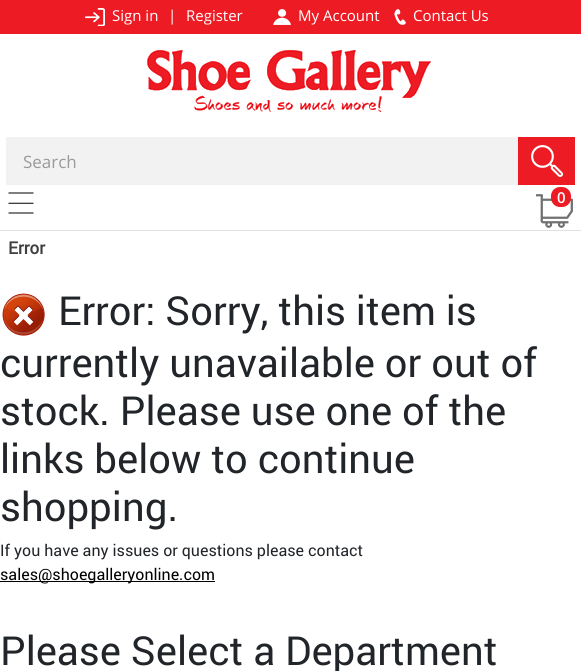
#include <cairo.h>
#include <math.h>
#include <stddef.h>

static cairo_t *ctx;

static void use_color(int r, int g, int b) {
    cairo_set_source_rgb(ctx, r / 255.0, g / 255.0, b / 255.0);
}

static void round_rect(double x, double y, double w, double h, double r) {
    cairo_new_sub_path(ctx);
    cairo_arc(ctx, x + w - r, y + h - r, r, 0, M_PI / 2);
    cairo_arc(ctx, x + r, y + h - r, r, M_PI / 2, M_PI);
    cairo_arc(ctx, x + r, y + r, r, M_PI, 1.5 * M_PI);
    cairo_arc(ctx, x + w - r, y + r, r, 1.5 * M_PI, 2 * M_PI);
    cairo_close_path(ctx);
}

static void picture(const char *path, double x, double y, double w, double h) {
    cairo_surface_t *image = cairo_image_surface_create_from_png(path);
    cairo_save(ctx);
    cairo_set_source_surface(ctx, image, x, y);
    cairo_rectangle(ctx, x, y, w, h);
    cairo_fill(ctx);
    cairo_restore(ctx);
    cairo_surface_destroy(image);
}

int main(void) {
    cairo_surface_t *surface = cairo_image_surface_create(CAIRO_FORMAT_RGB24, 581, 671);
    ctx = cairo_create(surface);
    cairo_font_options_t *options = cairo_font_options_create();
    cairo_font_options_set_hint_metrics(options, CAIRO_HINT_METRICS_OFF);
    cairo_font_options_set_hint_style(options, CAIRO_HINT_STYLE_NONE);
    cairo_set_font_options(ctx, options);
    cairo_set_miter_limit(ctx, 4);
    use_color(255, 255, 255);
    cairo_paint(ctx);
    use_color(225, 225, 225);
    cairo_rectangle(ctx, 0, 230, 581, 1);
    cairo_fill(ctx);
    use_color(237, 28, 36);
    cairo_rectangle(ctx, 0, 0, 581, 34);
    cairo_fill(ctx);
    picture("img1.png", 85, 8, 20, 18);
    cairo_select_font_face(ctx, "Open Sans", CAIRO_FONT_SLANT_NORMAL, CAIRO_FONT_WEIGHT_NORMAL);
    cairo_set_font_size(ctx, 15);
    use_color(255, 255, 255);
    cairo_move_to(ctx, 112, 21);
    cairo_show_text(ctx, "Sign in");
    cairo_move_to(ctx, 168, 21);
    cairo_show_text(ctx, "|");
    cairo_move_to(ctx, 186, 21);
    cairo_show_text(ctx, "Register");
    picture("img2.png", 273, 9, 18, 16);
    cairo_move_to(ctx, 298, 21);
    cairo_show_text(ctx, "My Account");
    picture("img3.png", 394, 9, 12, 16);
    cairo_move_to(ctx, 413, 21);
    cairo_show_text(ctx, "Contact Us");
    picture("img4.png", 147, 50, 284, 62);
    use_color(243, 242, 242);
    cairo_rectangle(ctx, 6, 137, 512, 48);
    cairo_fill(ctx);
    cairo_set_font_size(ctx, 17);
    use_color(154, 154, 154);
    cairo_move_to(ctx, 23, 168);
    cairo_show_text(ctx, "Search");
    picture("img5.png", 518, 137, 57, 48);
    picture("img6.png", 8, 192, 26, 22);
    picture("img7.png", 536, 194, 37, 34);
    use_color(237, 28, 36);
    round_rect(551, 187, 20, 20, 9);
    cairo_fill(ctx);
    cairo_select_font_face(ctx, "Open Sans SemiBold", CAIRO_FONT_SLANT_NORMAL, CAIRO_FONT_WEIGHT_NORMAL);
    cairo_set_font_size(ctx, 15);
    use_color(255, 255, 255);
    cairo_move_to(ctx, 557, 203);
    cairo_show_text(ctx, "0");
    cairo_select_font_face(ctx, "Roboto", CAIRO_FONT_SLANT_NORMAL, CAIRO_FONT_WEIGHT_BOLD);
    cairo_set_font_size(ctx, 17);
    use_color(64, 64, 65);
    cairo_move_to(ctx, 8, 254);
    cairo_show_text(ctx, "Error");
    picture("img8.png", 2, 293, 43, 43);
    cairo_select_font_face(ctx, "Roboto", CAIRO_FONT_SLANT_NORMAL, CAIRO_FONT_WEIGHT_NORMAL);
    cairo_set_font_size(ctx, 40);
    use_color(33, 37, 41);
    cairo_move_to(ctx, 58, 325);
    cairo_show_text(ctx, "Error: Sorry, this item is");
    cairo_move_to(ctx, 0, 377);
    cairo_show_text(ctx, "currently unavailable or out of");
    cairo_move_to(ctx, 0, 425);
    cairo_show_text(ctx, "stock. Please use one of the");
    cairo_move_to(ctx, 0, 473);
    cairo_show_text(ctx, "links below to continue");
    cairo_move_to(ctx, 0, 521);
    cairo_show_text(ctx, "shopping.");
    cairo_set_font_size(ctx, 16);
    cairo_move_to(ctx, 0, 556);
    cairo_show_text(ctx, "If you have any issues or questions please contact");
    use_color(0, 0, 0);
    cairo_rectangle(ctx, 0, 581, 215, 1);
    cairo_fill(ctx);
    cairo_move_to(ctx, 0, 580);
    cairo_show_text(ctx, "sales@shoegalleryonline.com");
    cairo_set_font_size(ctx, 40);
    use_color(33, 37, 41);
    cairo_move_to(ctx, 0, 665);
    cairo_show_text(ctx, "Please Select a Department");
    cairo_surface_write_to_png(surface, "result.png");
    cairo_font_options_destroy(options);
    cairo_destroy(ctx);
    cairo_surface_destroy(surface);
    return 0;
}
